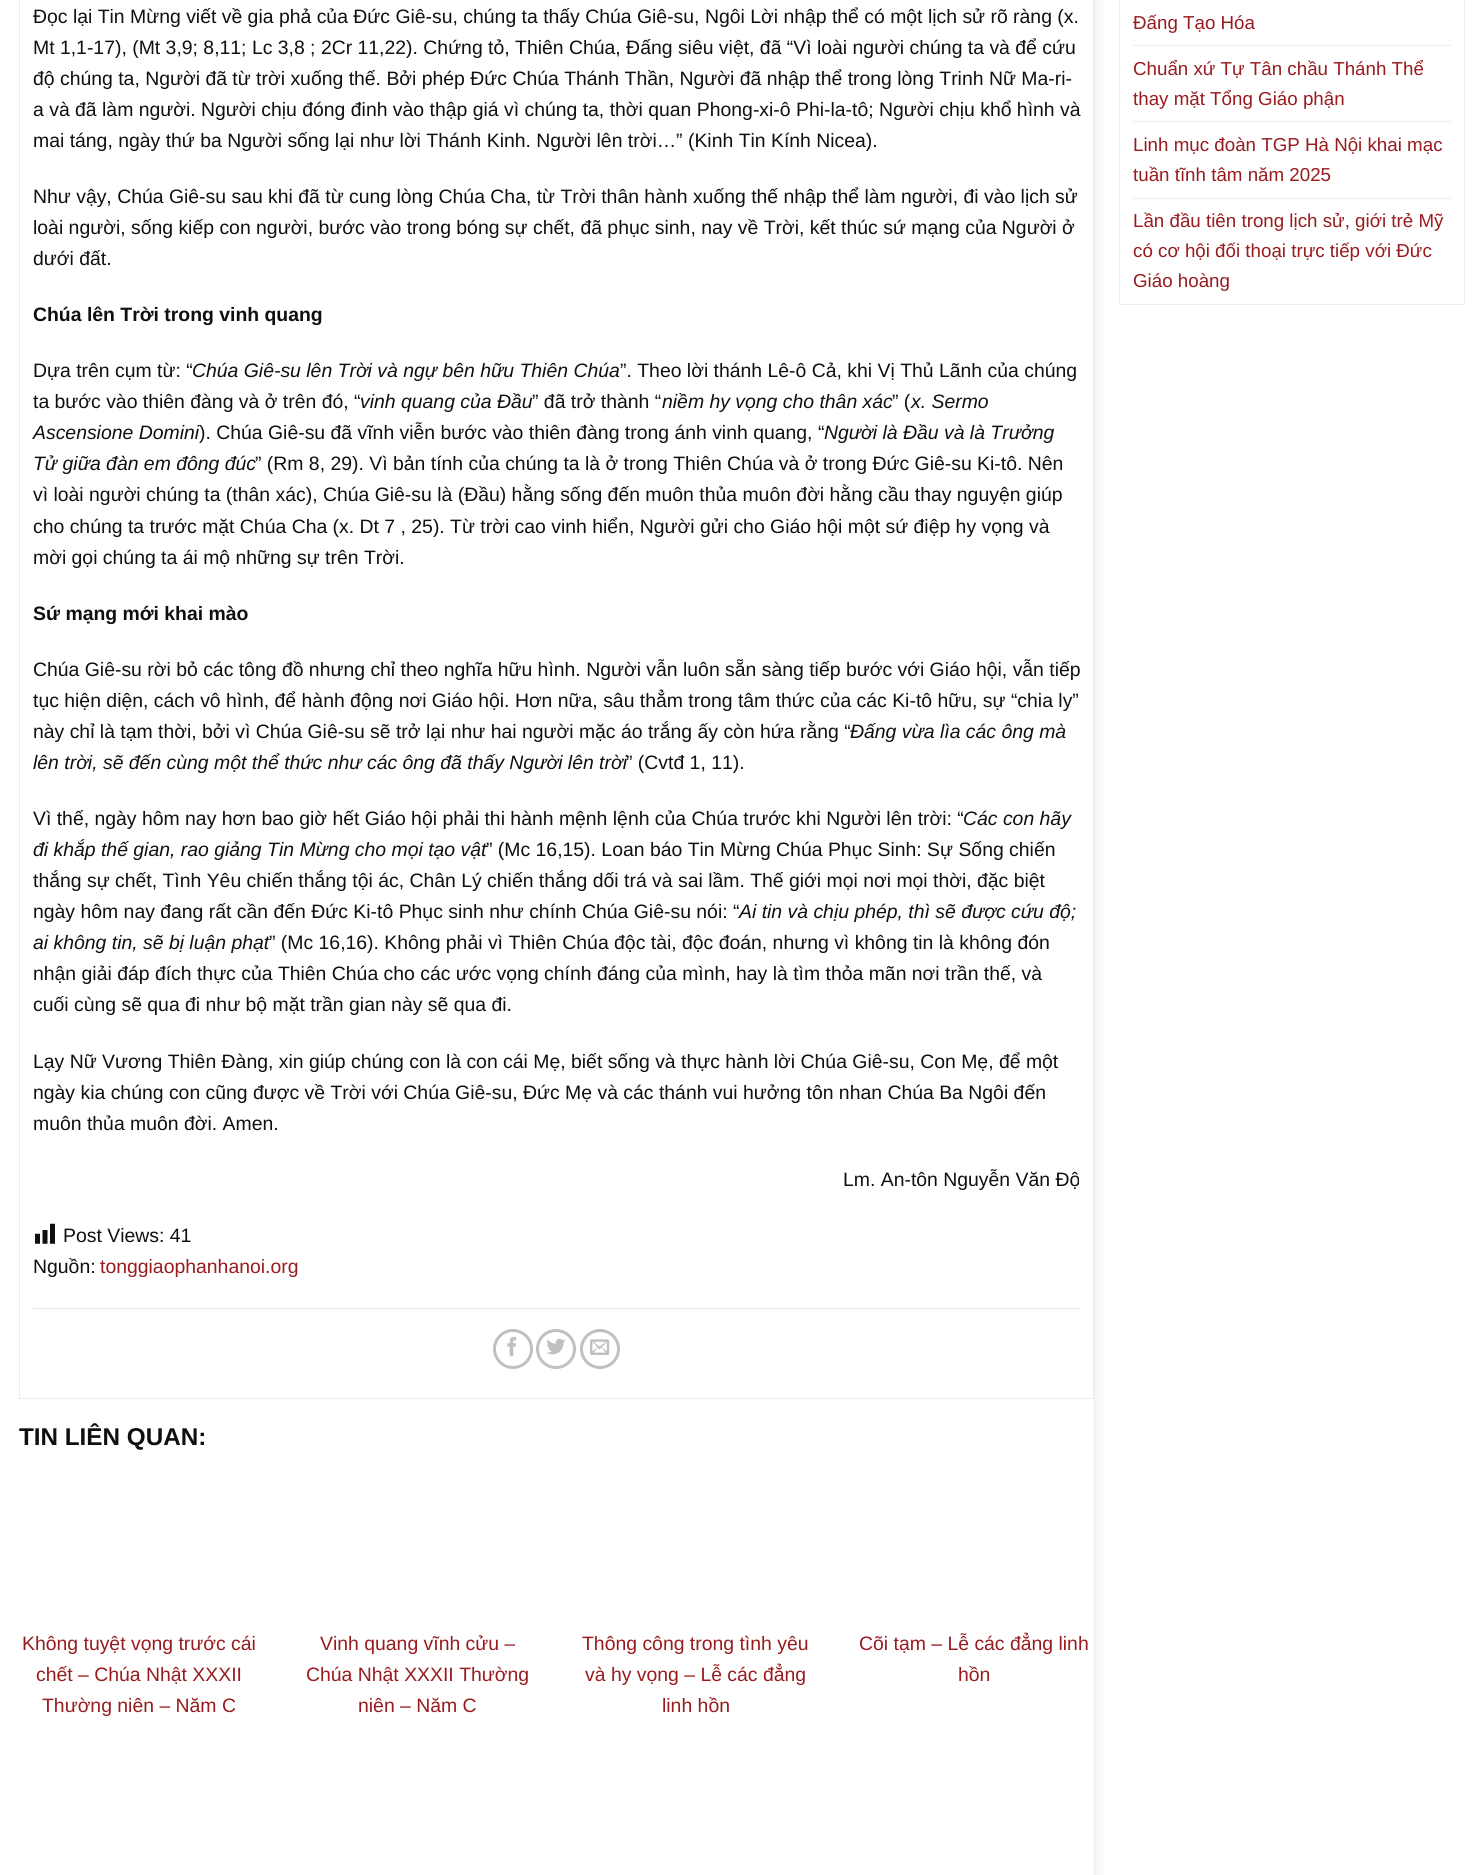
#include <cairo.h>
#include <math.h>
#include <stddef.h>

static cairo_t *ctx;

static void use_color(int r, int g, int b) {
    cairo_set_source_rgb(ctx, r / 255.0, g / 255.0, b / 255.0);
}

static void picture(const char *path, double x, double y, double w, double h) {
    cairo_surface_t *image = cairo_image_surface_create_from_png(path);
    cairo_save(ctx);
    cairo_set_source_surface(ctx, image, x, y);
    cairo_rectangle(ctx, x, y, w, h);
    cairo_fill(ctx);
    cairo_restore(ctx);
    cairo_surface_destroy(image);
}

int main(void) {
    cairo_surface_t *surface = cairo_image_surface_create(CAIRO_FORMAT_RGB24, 1483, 1875);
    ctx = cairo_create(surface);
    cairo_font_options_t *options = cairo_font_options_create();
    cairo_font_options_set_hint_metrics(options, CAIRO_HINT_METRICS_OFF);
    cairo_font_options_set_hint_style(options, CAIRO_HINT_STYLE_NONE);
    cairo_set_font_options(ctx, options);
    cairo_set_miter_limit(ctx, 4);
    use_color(255, 255, 255);
    cairo_paint(ctx);
    cairo_rectangle(ctx, 19.5, -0.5, 1074, 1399);
    use_color(236, 236, 236);
    cairo_set_line_width(ctx, 1);
    cairo_stroke(ctx);
    cairo_select_font_face(ctx, "Liberation Sans", CAIRO_FONT_SLANT_NORMAL, CAIRO_FONT_WEIGHT_NORMAL);
    cairo_set_font_size(ctx, 19.4);
    use_color(15, 15, 15);
    cairo_move_to(ctx, 33, 23);
    cairo_show_text(ctx, "Đọc lại Tin Mừng viết về gia phả của Đức Giê-su, chúng ta thấy Chúa Giê-su, Ngôi Lời nhập thể có một lịch sử rõ ràng (x.");
    cairo_move_to(ctx, 33, 54);
    cairo_show_text(ctx, "Mt 1,1-17), (Mt 3,9; 8,11; Lc 3,8 ; 2Cr 11,22). Chứng tỏ, Thiên Chúa, Đấng siêu việt, đã “Vì loài người chúng ta và để cứu");
    cairo_move_to(ctx, 33, 85);
    cairo_show_text(ctx, "độ chúng ta, Người đã từ trời xuống thế. Bởi phép Ðức Chúa Thánh Thần, Người đã nhập thể trong lòng Trinh Nữ Ma-ri-");
    cairo_move_to(ctx, 33, 116);
    cairo_show_text(ctx, "a và đã làm người. Người chịu đóng đinh vào thập giá vì chúng ta, thời quan Phong-xi-ô Phi-la-tô; Người chịu khổ hình và");
    cairo_move_to(ctx, 33, 147);
    cairo_show_text(ctx, "mai táng, ngày thứ ba Người sống lại như lời Thánh Kinh. Người lên trời…” (Kinh Tin Kính Nicea).");
    cairo_move_to(ctx, 33, 203);
    cairo_show_text(ctx, "Như vậy, Chúa Giê-su sau khi đã từ cung lòng Chúa Cha, từ Trời thân hành xuống thế nhập thể làm người, đi vào lịch sử");
    cairo_move_to(ctx, 33, 234);
    cairo_show_text(ctx, "loài người, sống kiếp con người, bước vào trong bóng sự chết, đã phục sinh, nay về Trời, kết thúc sứ mạng của Người ở");
    cairo_move_to(ctx, 33, 265);
    cairo_show_text(ctx, "dưới đất.");
    cairo_select_font_face(ctx, "Liberation Sans", CAIRO_FONT_SLANT_NORMAL, CAIRO_FONT_WEIGHT_BOLD);
    cairo_move_to(ctx, 33, 321);
    cairo_show_text(ctx, "Chúa lên Trời trong vinh quang");
    cairo_select_font_face(ctx, "Liberation Sans", CAIRO_FONT_SLANT_NORMAL, CAIRO_FONT_WEIGHT_NORMAL);
    cairo_move_to(ctx, 33, 377);
    cairo_show_text(ctx, "Dựa trên cụm từ: “");
    cairo_select_font_face(ctx, "Liberation Sans", CAIRO_FONT_SLANT_ITALIC, CAIRO_FONT_WEIGHT_NORMAL);
    cairo_move_to(ctx, 192, 377);
    cairo_show_text(ctx, "Chúa Giê-su lên Trời và ngự bên hữu Thiên Chúa");
    cairo_select_font_face(ctx, "Liberation Sans", CAIRO_FONT_SLANT_NORMAL, CAIRO_FONT_WEIGHT_NORMAL);
    cairo_move_to(ctx, 620, 377);
    cairo_show_text(ctx, "”. Theo lời thánh Lê-ô Cả, khi Vị Thủ Lãnh của chúng");
    cairo_move_to(ctx, 33, 408);
    cairo_show_text(ctx, "ta bước vào thiên đàng và ở trên đó, “");
    cairo_select_font_face(ctx, "Liberation Sans", CAIRO_FONT_SLANT_ITALIC, CAIRO_FONT_WEIGHT_NORMAL);
    cairo_move_to(ctx, 360, 408);
    cairo_show_text(ctx, "vinh quang của Đầu");
    cairo_select_font_face(ctx, "Liberation Sans", CAIRO_FONT_SLANT_NORMAL, CAIRO_FONT_WEIGHT_NORMAL);
    cairo_move_to(ctx, 532, 408);
    cairo_show_text(ctx, "” đã trở thành “");
    cairo_select_font_face(ctx, "Liberation Sans", CAIRO_FONT_SLANT_ITALIC, CAIRO_FONT_WEIGHT_NORMAL);
    cairo_move_to(ctx, 662, 408);
    cairo_show_text(ctx, "niềm hy vọng cho thân xác");
    cairo_select_font_face(ctx, "Liberation Sans", CAIRO_FONT_SLANT_NORMAL, CAIRO_FONT_WEIGHT_NORMAL);
    cairo_move_to(ctx, 892, 408);
    cairo_show_text(ctx, "” (");
    cairo_select_font_face(ctx, "Liberation Sans", CAIRO_FONT_SLANT_ITALIC, CAIRO_FONT_WEIGHT_NORMAL);
    cairo_move_to(ctx, 911, 408);
    cairo_show_text(ctx, "x. Sermo");
    cairo_move_to(ctx, 33, 439);
    cairo_show_text(ctx, "Ascensione Domini");
    cairo_select_font_face(ctx, "Liberation Sans", CAIRO_FONT_SLANT_NORMAL, CAIRO_FONT_WEIGHT_NORMAL);
    cairo_move_to(ctx, 199, 439);
    cairo_show_text(ctx, "). Chúa Giê-su đã vĩnh viễn bước vào thiên đàng trong ánh vinh quang, “");
    cairo_select_font_face(ctx, "Liberation Sans", CAIRO_FONT_SLANT_ITALIC, CAIRO_FONT_WEIGHT_NORMAL);
    cairo_move_to(ctx, 824, 439);
    cairo_show_text(ctx, "Người là Đầu và là Trưởng");
    cairo_move_to(ctx, 33, 470);
    cairo_show_text(ctx, "Tử giữa đàn em đông đúc");
    cairo_select_font_face(ctx, "Liberation Sans", CAIRO_FONT_SLANT_NORMAL, CAIRO_FONT_WEIGHT_NORMAL);
    cairo_move_to(ctx, 255, 470);
    cairo_show_text(ctx, "” (Rm 8, 29). Vì bản tính của chúng ta là ở trong Thiên Chúa và ở trong Đức Giê-su Ki-tô. Nên");
    cairo_move_to(ctx, 33, 501);
    cairo_show_text(ctx, "vì loài người chúng ta (thân xác), Chúa Giê-su là (Đầu) hằng sống đến muôn thủa muôn đời hằng cầu thay nguyện giúp");
    cairo_move_to(ctx, 33, 533);
    cairo_show_text(ctx, "cho chúng ta trước mặt Chúa Cha (x. Dt 7 , 25). Từ trời cao vinh hiển, Người gửi cho Giáo hội một sứ điệp hy vọng và");
    cairo_move_to(ctx, 33, 564);
    cairo_show_text(ctx, "mời gọi chúng ta ái mộ những sự trên Trời.");
    cairo_select_font_face(ctx, "Liberation Sans", CAIRO_FONT_SLANT_NORMAL, CAIRO_FONT_WEIGHT_BOLD);
    cairo_move_to(ctx, 33, 620);
    cairo_show_text(ctx, "Sứ mạng mới khai mào");
    cairo_select_font_face(ctx, "Liberation Sans", CAIRO_FONT_SLANT_NORMAL, CAIRO_FONT_WEIGHT_NORMAL);
    cairo_move_to(ctx, 33, 676);
    cairo_show_text(ctx, "Chúa Giê-su rời bỏ các tông đồ nhưng chỉ theo nghĩa hữu hình. Người vẫn luôn sẵn sàng tiếp bước với Giáo hội, vẫn tiếp");
    cairo_move_to(ctx, 33, 707);
    cairo_show_text(ctx, "tục hiện diện, cách vô hình, để hành động nơi Giáo hội. Hơn nữa, sâu thẳm trong tâm thức của các Ki-tô hữu, sự “chia ly”");
    cairo_move_to(ctx, 33, 738);
    cairo_show_text(ctx, "này chỉ là tạm thời, bởi vì Chúa Giê-su sẽ trở lại như hai người mặc áo trắng ấy còn hứa rằng “");
    cairo_select_font_face(ctx, "Liberation Sans", CAIRO_FONT_SLANT_ITALIC, CAIRO_FONT_WEIGHT_NORMAL);
    cairo_move_to(ctx, 850, 738);
    cairo_show_text(ctx, "Đấng vừa lìa các ông mà");
    cairo_move_to(ctx, 33, 769);
    cairo_show_text(ctx, "lên trời, sẽ đến cùng một thể thức như các ông đã thấy Người lên trời");
    cairo_select_font_face(ctx, "Liberation Sans", CAIRO_FONT_SLANT_NORMAL, CAIRO_FONT_WEIGHT_NORMAL);
    cairo_move_to(ctx, 626, 769);
    cairo_show_text(ctx, "” (Cvtđ 1, 11).");
    cairo_move_to(ctx, 33, 825);
    cairo_show_text(ctx, "Vì thế, ngày hôm nay hơn bao giờ hết Giáo hội phải thi hành mệnh lệnh của Chúa trước khi Người lên trời: “");
    cairo_select_font_face(ctx, "Liberation Sans", CAIRO_FONT_SLANT_ITALIC, CAIRO_FONT_WEIGHT_NORMAL);
    cairo_move_to(ctx, 963, 825);
    cairo_show_text(ctx, "Các con hãy");
    cairo_move_to(ctx, 33, 856);
    cairo_show_text(ctx, "đi khắp thế gian, rao giảng Tin Mừng cho mọi tạo vật");
    cairo_select_font_face(ctx, "Liberation Sans", CAIRO_FONT_SLANT_NORMAL, CAIRO_FONT_WEIGHT_NORMAL);
    cairo_move_to(ctx, 486, 856);
    cairo_show_text(ctx, "” (Mc 16,15). Loan báo Tin Mừng Chúa Phục Sinh: Sự Sống chiến");
    cairo_move_to(ctx, 33, 887);
    cairo_show_text(ctx, "thắng sự chết, Tình Yêu chiến thắng tội ác, Chân Lý chiến thắng dối trá và sai lầm. Thế giới mọi nơi mọi thời, đặc biệt");
    cairo_move_to(ctx, 33, 918);
    cairo_show_text(ctx, "ngày hôm nay đang rất cần đến Đức Ki-tô Phục sinh như chính Chúa Giê-su nói: “");
    cairo_select_font_face(ctx, "Liberation Sans", CAIRO_FONT_SLANT_ITALIC, CAIRO_FONT_WEIGHT_NORMAL);
    cairo_move_to(ctx, 739, 918);
    cairo_show_text(ctx, "Ai tin và chịu phép, thì sẽ được cứu độ;");
    cairo_move_to(ctx, 33, 949);
    cairo_show_text(ctx, "ai không tin, sẽ bị luận phạt");
    cairo_select_font_face(ctx, "Liberation Sans", CAIRO_FONT_SLANT_NORMAL, CAIRO_FONT_WEIGHT_NORMAL);
    cairo_move_to(ctx, 269, 949);
    cairo_show_text(ctx, "” (Mc 16,16). Không phải vì Thiên Chúa độc tài, độc đoán, nhưng vì không tin là không đón");
    cairo_move_to(ctx, 33, 980);
    cairo_show_text(ctx, "nhận giải đáp đích thực của Thiên Chúa cho các ước vọng chính đáng của mình, hay là tìm thỏa mãn nơi trần thế, và");
    cairo_move_to(ctx, 33, 1011);
    cairo_show_text(ctx, "cuối cùng sẽ qua đi như bộ mặt trần gian này sẽ qua đi.");
    cairo_move_to(ctx, 33, 1068);
    cairo_show_text(ctx, "Lạy Nữ Vương Thiên Ðàng, xin giúp chúng con là con cái Mẹ, biết sống và thực hành lời Chúa Giê-su, Con Mẹ, để một");
    cairo_move_to(ctx, 33, 1099);
    cairo_show_text(ctx, "ngày kia chúng con cũng được về Trời với Chúa Giê-su, Đức Mẹ và các thánh vui hưởng tôn nhan Chúa Ba Ngôi đến");
    cairo_move_to(ctx, 33, 1130);
    cairo_show_text(ctx, "muôn thủa muôn đời. Amen.");
    cairo_move_to(ctx, 843, 1186);
    cairo_show_text(ctx, "Lm. An-tôn Nguyễn Văn Độ");
    picture("img1.png", 35, 1223, 20, 21);
    cairo_move_to(ctx, 63, 1242);
    cairo_show_text(ctx, "Post Views: 41");
    cairo_move_to(ctx, 33, 1273);
    cairo_show_text(ctx, "Nguồn:");
    use_color(152, 27, 30);
    cairo_move_to(ctx, 100, 1273);
    cairo_show_text(ctx, "tonggiaophanhanoi.org");
    use_color(230, 230, 230);
    cairo_rectangle(ctx, 33, 1308, 1047, 1);
    cairo_fill(ctx);
    cairo_arc(ctx, 513, 1349, 18.5, 0, 2 * M_PI);
    use_color(192, 192, 192);
    cairo_set_line_width(ctx, 3);
    cairo_stroke(ctx);
    picture("img2.png", 507, 1337, 10, 20);
    cairo_arc(ctx, 556, 1349, 18.5, 0, 2 * M_PI);
    cairo_stroke(ctx);
    picture("img3.png", 546, 1338, 20, 17);
    cairo_arc(ctx, 600, 1349, 18.5, 0, 2 * M_PI);
    cairo_stroke(ctx);
    picture("img4.png", 590, 1339, 20, 16);
    picture("img5.png", 1093, 0, 10, 1875);
    cairo_select_font_face(ctx, "Liberation Sans", CAIRO_FONT_SLANT_NORMAL, CAIRO_FONT_WEIGHT_BOLD);
    cairo_set_font_size(ctx, 24.25);
    use_color(15, 15, 15);
    cairo_move_to(ctx, 19, 1445);
    cairo_show_text(ctx, "TIN LIÊN QUAN:");
    cairo_select_font_face(ctx, "Liberation Sans", CAIRO_FONT_SLANT_NORMAL, CAIRO_FONT_WEIGHT_NORMAL);
    cairo_set_font_size(ctx, 19.4);
    use_color(152, 27, 30);
    cairo_move_to(ctx, 22, 1650);
    cairo_show_text(ctx, "Không tuyệt vọng trước cái");
    cairo_move_to(ctx, 36, 1681);
    cairo_show_text(ctx, "chết – Chúa Nhật XXXII");
    cairo_move_to(ctx, 42, 1712);
    cairo_show_text(ctx, "Thường niên – Năm C");
    cairo_move_to(ctx, 320, 1650);
    cairo_show_text(ctx, "Vinh quang vĩnh cửu –");
    cairo_move_to(ctx, 306, 1681);
    cairo_show_text(ctx, "Chúa Nhật XXXII Thường");
    cairo_move_to(ctx, 358, 1712);
    cairo_show_text(ctx, "niên – Năm C");
    cairo_move_to(ctx, 582, 1650);
    cairo_show_text(ctx, "Thông công trong tình yêu");
    cairo_move_to(ctx, 585, 1681);
    cairo_show_text(ctx, "và hy vọng – Lễ các đẳng");
    cairo_move_to(ctx, 662, 1712);
    cairo_show_text(ctx, "linh hồn");
    cairo_move_to(ctx, 859, 1650);
    cairo_show_text(ctx, "Cõi tạm – Lễ các đẳng linh");
    cairo_move_to(ctx, 958, 1681);
    cairo_show_text(ctx, "hồn");
    cairo_rectangle(ctx, 1119.5, -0.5, 345, 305);
    use_color(236, 236, 236);
    cairo_set_line_width(ctx, 1);
    cairo_stroke(ctx);
    cairo_set_font_size(ctx, 18.75);
    use_color(152, 27, 30);
    cairo_move_to(ctx, 1133, 29);
    cairo_show_text(ctx, "Đấng Tạo Hóa");
    use_color(236, 236, 236);
    cairo_rectangle(ctx, 1133, 45, 318, 1);
    cairo_fill(ctx);
    use_color(152, 27, 30);
    cairo_move_to(ctx, 1133, 75);
    cairo_show_text(ctx, "Chuẩn xứ Tự Tân chầu Thánh Thể");
    cairo_move_to(ctx, 1133, 105);
    cairo_show_text(ctx, "thay mặt Tổng Giáo phận");
    use_color(236, 236, 236);
    cairo_rectangle(ctx, 1133, 121, 318, 1);
    cairo_fill(ctx);
    use_color(152, 27, 30);
    cairo_move_to(ctx, 1133, 151);
    cairo_show_text(ctx, "Linh mục đoàn TGP Hà Nội khai mạc");
    cairo_move_to(ctx, 1133, 181);
    cairo_show_text(ctx, "tuần tĩnh tâm năm 2025");
    use_color(236, 236, 236);
    cairo_rectangle(ctx, 1133, 198, 318, 1);
    cairo_fill(ctx);
    use_color(152, 27, 30);
    cairo_move_to(ctx, 1133, 227);
    cairo_show_text(ctx, "Lần đầu tiên trong lịch sử, giới trẻ Mỹ");
    cairo_move_to(ctx, 1133, 257);
    cairo_show_text(ctx, "có cơ hội đối thoại trực tiếp với Đức");
    cairo_move_to(ctx, 1133, 287);
    cairo_show_text(ctx, "Giáo hoàng");
    cairo_surface_write_to_png(surface, "result.png");
    cairo_font_options_destroy(options);
    cairo_destroy(ctx);
    cairo_surface_destroy(surface);
    return 0;
}
